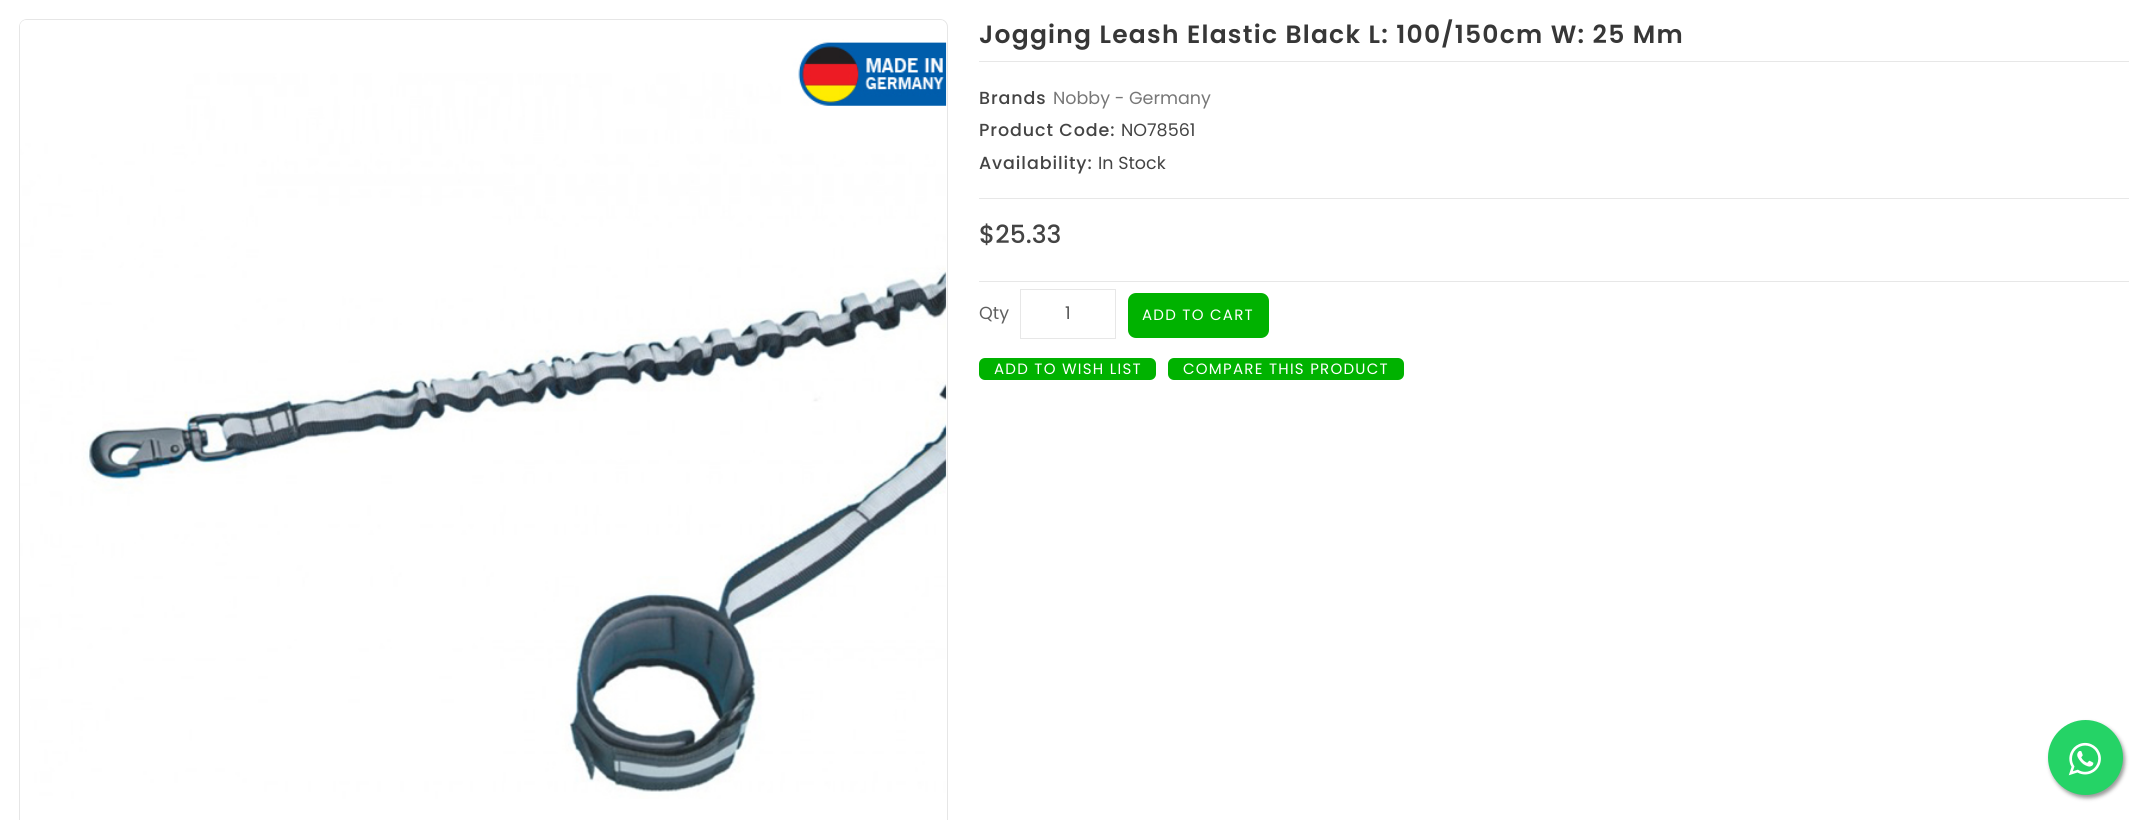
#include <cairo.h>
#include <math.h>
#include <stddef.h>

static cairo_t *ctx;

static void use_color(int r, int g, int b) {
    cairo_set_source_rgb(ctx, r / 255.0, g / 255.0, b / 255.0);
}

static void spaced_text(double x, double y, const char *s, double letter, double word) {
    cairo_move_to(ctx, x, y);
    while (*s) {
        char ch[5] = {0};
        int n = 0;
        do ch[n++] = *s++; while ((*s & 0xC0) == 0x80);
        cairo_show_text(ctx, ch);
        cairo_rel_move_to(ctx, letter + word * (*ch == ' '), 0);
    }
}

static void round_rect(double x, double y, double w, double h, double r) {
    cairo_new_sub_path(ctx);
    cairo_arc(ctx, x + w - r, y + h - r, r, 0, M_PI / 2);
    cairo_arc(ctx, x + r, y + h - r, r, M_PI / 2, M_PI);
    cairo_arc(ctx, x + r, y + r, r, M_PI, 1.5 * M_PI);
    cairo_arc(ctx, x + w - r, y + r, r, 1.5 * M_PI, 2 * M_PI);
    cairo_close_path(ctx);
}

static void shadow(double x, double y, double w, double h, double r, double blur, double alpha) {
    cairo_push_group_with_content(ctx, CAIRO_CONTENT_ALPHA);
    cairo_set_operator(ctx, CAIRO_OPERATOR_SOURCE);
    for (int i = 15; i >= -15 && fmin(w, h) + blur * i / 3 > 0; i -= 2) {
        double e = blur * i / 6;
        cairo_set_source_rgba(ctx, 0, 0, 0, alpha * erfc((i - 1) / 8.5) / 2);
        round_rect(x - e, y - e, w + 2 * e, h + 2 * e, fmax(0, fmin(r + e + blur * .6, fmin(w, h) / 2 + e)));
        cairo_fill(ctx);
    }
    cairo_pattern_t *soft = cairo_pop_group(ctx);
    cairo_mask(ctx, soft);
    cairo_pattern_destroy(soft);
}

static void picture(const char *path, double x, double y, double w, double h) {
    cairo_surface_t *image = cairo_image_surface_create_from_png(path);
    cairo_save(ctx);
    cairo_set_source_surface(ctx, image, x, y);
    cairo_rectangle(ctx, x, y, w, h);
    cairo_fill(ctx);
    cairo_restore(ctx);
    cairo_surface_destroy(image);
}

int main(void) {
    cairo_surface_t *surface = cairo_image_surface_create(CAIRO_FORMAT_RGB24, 2147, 820);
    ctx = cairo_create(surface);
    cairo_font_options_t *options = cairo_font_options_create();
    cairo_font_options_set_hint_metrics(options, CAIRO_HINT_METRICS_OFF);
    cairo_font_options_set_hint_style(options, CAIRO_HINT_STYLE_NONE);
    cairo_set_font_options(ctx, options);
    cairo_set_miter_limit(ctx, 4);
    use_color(255, 255, 255);
    cairo_paint(ctx);
    round_rect(19.5, 19.5, 928, 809, 7.5);
    use_color(230, 230, 230);
    cairo_set_line_width(ctx, 1);
    cairo_stroke(ctx);
    picture("img1.png", 20, 20, 927, 779);
    cairo_select_font_face(ctx, "Poppins SemiBold", CAIRO_FONT_SLANT_NORMAL, CAIRO_FONT_WEIGHT_NORMAL);
    cairo_set_font_size(ctx, 25);
    use_color(55, 55, 55);
    spaced_text(979, 43, "Jogging Leash Elastic Black L: 100/150cm W: 25 Mm", 1.25, 0);
    use_color(231, 231, 231);
    cairo_rectangle(ctx, 979, 61, 1150, 1);
    cairo_fill(ctx);
    cairo_select_font_face(ctx, "Poppins Medium", CAIRO_FONT_SLANT_NORMAL, CAIRO_FONT_WEIGHT_NORMAL);
    cairo_set_font_size(ctx, 17.5);
    use_color(68, 68, 68);
    spaced_text(979, 104, "Brands", 0.9, 0);
    cairo_select_font_face(ctx, "Poppins", CAIRO_FONT_SLANT_NORMAL, CAIRO_FONT_WEIGHT_NORMAL);
    use_color(119, 119, 119);
    cairo_move_to(ctx, 1053, 104);
    cairo_show_text(ctx, "Nobby - Germany");
    cairo_select_font_face(ctx, "Poppins Medium", CAIRO_FONT_SLANT_NORMAL, CAIRO_FONT_WEIGHT_NORMAL);
    use_color(68, 68, 68);
    spaced_text(979, 136, "Product Code:", 0.9, 0);
    cairo_select_font_face(ctx, "Poppins", CAIRO_FONT_SLANT_NORMAL, CAIRO_FONT_WEIGHT_NORMAL);
    cairo_move_to(ctx, 1121, 136);
    cairo_show_text(ctx, "NO78561");
    cairo_select_font_face(ctx, "Poppins Medium", CAIRO_FONT_SLANT_NORMAL, CAIRO_FONT_WEIGHT_NORMAL);
    spaced_text(979, 169, "Availability:", 0.9, 0);
    cairo_select_font_face(ctx, "Poppins", CAIRO_FONT_SLANT_NORMAL, CAIRO_FONT_WEIGHT_NORMAL);
    cairo_move_to(ctx, 1098, 169);
    cairo_show_text(ctx, "In Stock");
    use_color(231, 231, 231);
    cairo_rectangle(ctx, 979, 198, 1150, 1);
    cairo_fill(ctx);
    cairo_rectangle(ctx, 979, 281, 1150, 1);
    cairo_fill(ctx);
    cairo_select_font_face(ctx, "Poppins Medium", CAIRO_FONT_SLANT_NORMAL, CAIRO_FONT_WEIGHT_NORMAL);
    cairo_set_font_size(ctx, 25);
    use_color(68, 68, 68);
    cairo_move_to(ctx, 979, 243);
    cairo_show_text(ctx, "$25.33");
    cairo_select_font_face(ctx, "Poppins", CAIRO_FONT_SLANT_NORMAL, CAIRO_FONT_WEIGHT_NORMAL);
    cairo_set_font_size(ctx, 17.5);
    use_color(96, 96, 96);
    cairo_move_to(ctx, 979, 319);
    cairo_show_text(ctx, "Qty");
    cairo_rectangle(ctx, 1020.5, 289.5, 95, 49);
    use_color(231, 231, 231);
    cairo_stroke(ctx);
    use_color(85, 85, 85);
    cairo_move_to(ctx, 1065, 319);
    cairo_show_text(ctx, "1");
    use_color(0, 178, 0);
    round_rect(1128, 293, 141, 45, 8);
    cairo_fill(ctx);
    cairo_set_font_size(ctx, 15);
    use_color(255, 255, 255);
    spaced_text(1142, 320, "ADD TO CART", 1.25, 0);
    use_color(0, 178, 0);
    round_rect(979, 358, 177, 22, 6);
    cairo_fill(ctx);
    use_color(255, 255, 255);
    spaced_text(994, 374, "ADD TO WISH LIST", 1.25, 0);
    use_color(0, 178, 0);
    round_rect(1168, 358, 236, 22, 6);
    cairo_fill(ctx);
    use_color(255, 255, 255);
    spaced_text(1183, 374, "COMPARE THIS PRODUCT", 1.25, 0);
    use_color(153, 153, 153);
    shadow(2050, 723, 75, 75, 37.5, 2, 1);
    use_color(37, 211, 102);
    cairo_arc(ctx, 2085.5, 757.5, 37.5, 0, 2 * M_PI);
    cairo_fill(ctx);
    picture("img2.png", 2068, 742, 33, 34);
    cairo_surface_write_to_png(surface, "result.png");
    cairo_font_options_destroy(options);
    cairo_destroy(ctx);
    cairo_surface_destroy(surface);
    return 0;
}
